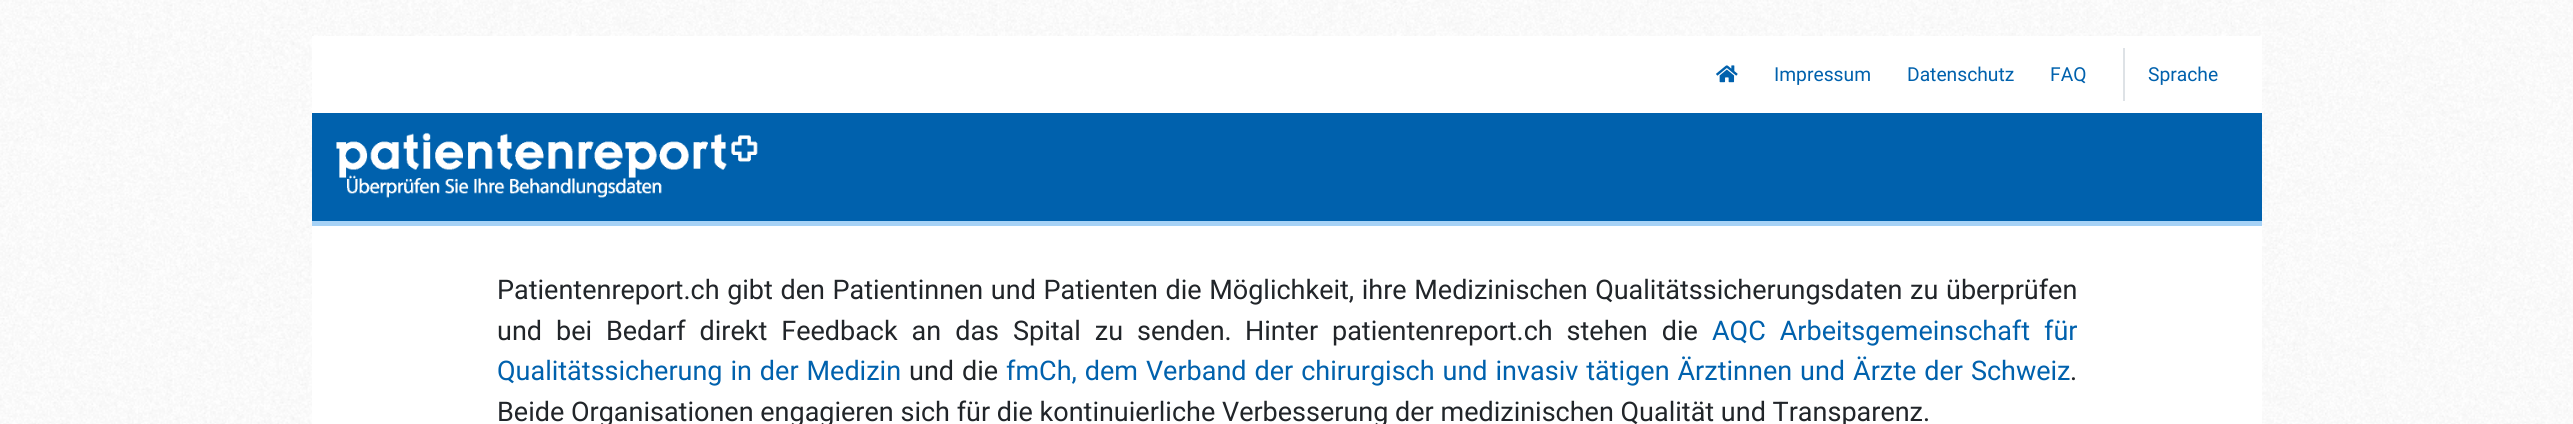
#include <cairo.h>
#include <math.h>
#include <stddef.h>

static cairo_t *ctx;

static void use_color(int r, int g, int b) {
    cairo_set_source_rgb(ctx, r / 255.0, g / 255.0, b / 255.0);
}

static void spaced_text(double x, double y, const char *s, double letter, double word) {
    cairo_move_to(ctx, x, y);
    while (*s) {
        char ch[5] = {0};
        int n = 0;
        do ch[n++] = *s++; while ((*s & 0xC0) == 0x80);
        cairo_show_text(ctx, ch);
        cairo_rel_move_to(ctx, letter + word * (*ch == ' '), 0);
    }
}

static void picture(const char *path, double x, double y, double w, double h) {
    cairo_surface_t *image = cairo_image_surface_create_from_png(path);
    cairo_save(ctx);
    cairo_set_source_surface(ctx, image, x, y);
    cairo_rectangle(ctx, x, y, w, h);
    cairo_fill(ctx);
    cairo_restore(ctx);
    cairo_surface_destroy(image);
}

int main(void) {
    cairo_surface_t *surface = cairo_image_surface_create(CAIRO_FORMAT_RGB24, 2573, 424);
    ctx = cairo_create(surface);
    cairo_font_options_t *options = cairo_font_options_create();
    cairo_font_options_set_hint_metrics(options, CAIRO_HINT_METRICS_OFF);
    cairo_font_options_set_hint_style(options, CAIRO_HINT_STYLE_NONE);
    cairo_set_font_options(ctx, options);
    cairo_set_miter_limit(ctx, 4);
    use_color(255, 255, 255);
    cairo_paint(ctx);
    picture("img1.png", 0, 0, 2573, 424);
    use_color(255, 255, 255);
    cairo_rectangle(ctx, 312, 36, 1950, 388);
    cairo_fill(ctx);
    picture("img2.png", 1716, 65, 22, 18);
    cairo_select_font_face(ctx, "Roboto", CAIRO_FONT_SLANT_NORMAL, CAIRO_FONT_WEIGHT_NORMAL);
    cairo_set_font_size(ctx, 19.25);
    use_color(0, 97, 173);
    cairo_move_to(ctx, 1774, 81);
    cairo_show_text(ctx, "Impressum");
    cairo_move_to(ctx, 1907, 81);
    cairo_show_text(ctx, "Datenschutz");
    cairo_move_to(ctx, 2050, 81);
    cairo_show_text(ctx, "FAQ");
    use_color(222, 226, 230);
    cairo_rectangle(ctx, 2123, 48, 2, 53);
    cairo_fill(ctx);
    use_color(0, 97, 173);
    cairo_move_to(ctx, 2148, 81);
    cairo_show_text(ctx, "Sprache");
    cairo_rectangle(ctx, 312, 113, 1950, 108);
    cairo_fill(ctx);
    use_color(166, 210, 246);
    cairo_rectangle(ctx, 312, 221, 1950, 5);
    cairo_fill(ctx);
    picture("img3.png", 336, 132, 422, 66);
    cairo_set_font_size(ctx, 27);
    use_color(33, 37, 41);
    spaced_text(497, 299, "Patientenreport.ch gibt den Patientinnen und Patienten die Möglichkeit, ihre Medizinischen Qualitätssicherungsdaten zu überprüfen", 0, 0.9);
    spaced_text(497, 340, "und bei Bedarf direkt Feedback an das Spital zu senden.", 0, 7.25);
    spaced_text(1245, 340, "Hinter patientenreport.ch stehen die", 0, 7.25);
    use_color(0, 97, 173);
    spaced_text(1712, 340, "AQC Arbeitsgemeinschaft für", 0, 7.25);
    spaced_text(497, 380, "Qualitätssicherung in der Medizin", 0, 1.25);
    use_color(33, 37, 41);
    spaced_text(909, 380, "und die", 0, 1.25);
    use_color(0, 97, 173);
    spaced_text(1006, 380, "fmCh, dem Verband der chirurgisch und invasiv tätigen Ärztinnen und Ärzte der Schweiz", 0, 1.25);
    use_color(33, 37, 41);
    cairo_move_to(ctx, 2070, 380);
    cairo_show_text(ctx, ".");
    cairo_move_to(ctx, 497, 421);
    cairo_show_text(ctx, "Beide Organisationen engagieren sich für die kontinuierliche Verbesserung der medizinischen Qualität und Transparenz.");
    cairo_surface_write_to_png(surface, "result.png");
    cairo_font_options_destroy(options);
    cairo_destroy(ctx);
    cairo_surface_destroy(surface);
    return 0;
}
